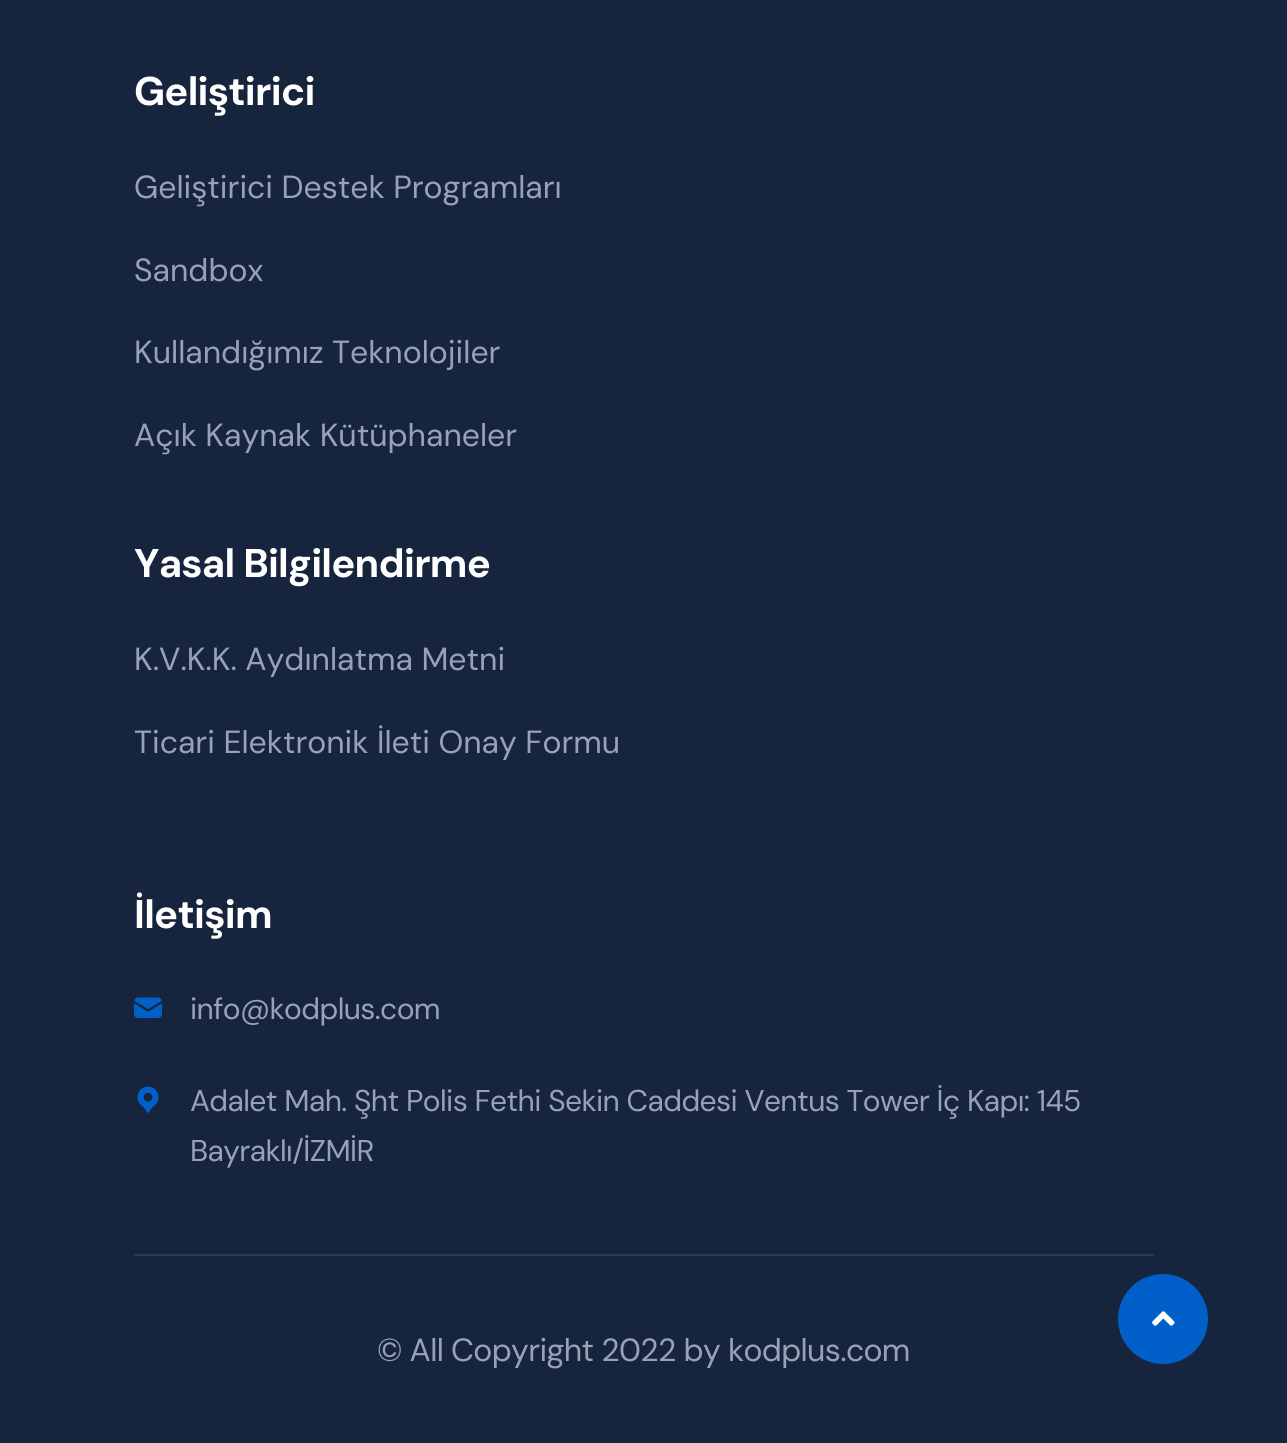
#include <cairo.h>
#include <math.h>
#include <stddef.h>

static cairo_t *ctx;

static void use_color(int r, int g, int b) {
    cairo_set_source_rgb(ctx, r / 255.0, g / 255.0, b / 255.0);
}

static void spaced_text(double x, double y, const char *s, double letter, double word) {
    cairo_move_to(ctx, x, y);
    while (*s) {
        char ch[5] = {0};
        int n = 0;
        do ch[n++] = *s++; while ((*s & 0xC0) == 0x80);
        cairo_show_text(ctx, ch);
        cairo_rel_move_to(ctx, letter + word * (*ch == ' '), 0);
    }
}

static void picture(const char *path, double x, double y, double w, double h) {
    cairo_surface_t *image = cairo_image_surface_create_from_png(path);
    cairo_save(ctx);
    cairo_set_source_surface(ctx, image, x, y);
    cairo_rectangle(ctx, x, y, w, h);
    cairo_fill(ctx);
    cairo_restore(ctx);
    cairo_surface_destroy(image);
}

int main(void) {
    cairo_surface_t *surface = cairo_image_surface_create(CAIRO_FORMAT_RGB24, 1287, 1443);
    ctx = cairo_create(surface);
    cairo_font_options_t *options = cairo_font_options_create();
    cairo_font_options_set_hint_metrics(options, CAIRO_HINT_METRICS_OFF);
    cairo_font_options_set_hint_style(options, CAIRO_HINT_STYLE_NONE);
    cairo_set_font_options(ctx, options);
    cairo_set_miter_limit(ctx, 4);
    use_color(22, 36, 61);
    cairo_paint(ctx);
    cairo_select_font_face(ctx, "DM Sans", CAIRO_FONT_SLANT_NORMAL, CAIRO_FONT_WEIGHT_BOLD);
    cairo_set_font_size(ctx, 40);
    use_color(255, 255, 255);
    spaced_text(134, 105, "Geliştirici", -0.75, 0);
    cairo_select_font_face(ctx, "DM Sans", CAIRO_FONT_SLANT_NORMAL, CAIRO_FONT_WEIGHT_NORMAL);
    cairo_set_font_size(ctx, 32);
    use_color(151, 162, 183);
    cairo_move_to(ctx, 134, 198);
    cairo_show_text(ctx, "Geliştirici Destek Programları");
    cairo_move_to(ctx, 134, 281);
    cairo_show_text(ctx, "Sandbox");
    cairo_move_to(ctx, 134, 363);
    cairo_show_text(ctx, "Kullandığımız Teknolojiler");
    cairo_move_to(ctx, 134, 446);
    cairo_show_text(ctx, "Açık Kaynak Kütüphaneler");
    cairo_select_font_face(ctx, "DM Sans", CAIRO_FONT_SLANT_NORMAL, CAIRO_FONT_WEIGHT_BOLD);
    cairo_set_font_size(ctx, 40);
    use_color(255, 255, 255);
    spaced_text(134, 577, "Yasal Bilgilendirme", -0.75, 0);
    cairo_select_font_face(ctx, "DM Sans", CAIRO_FONT_SLANT_NORMAL, CAIRO_FONT_WEIGHT_NORMAL);
    cairo_set_font_size(ctx, 32);
    use_color(151, 162, 183);
    cairo_move_to(ctx, 134, 670);
    cairo_show_text(ctx, "K.V.K.K. Aydınlatma Metni");
    cairo_move_to(ctx, 134, 753);
    cairo_show_text(ctx, "Ticari Elektronik İleti Onay Formu");
    cairo_select_font_face(ctx, "DM Sans", CAIRO_FONT_SLANT_NORMAL, CAIRO_FONT_WEIGHT_BOLD);
    cairo_set_font_size(ctx, 40);
    use_color(255, 255, 255);
    spaced_text(134, 928, "İletişim", -0.75, 0);
    picture("img1.png", 134, 997, 28, 22);
    cairo_select_font_face(ctx, "DM Sans", CAIRO_FONT_SLANT_NORMAL, CAIRO_FONT_WEIGHT_NORMAL);
    cairo_set_font_size(ctx, 30);
    use_color(151, 162, 183);
    spaced_text(190, 1019, "info@kodplus.com", -0.6, 0);
    picture("img2.png", 137, 1086, 22, 27);
    spaced_text(190, 1111, "Adalet Mah. Şht Polis Fethi Sekin Caddesi Ventus Tower İç Kapı: 145", -0.6, 0);
    spaced_text(190, 1161, "Bayraklı/İZMİR", -0.6, 0);
    use_color(45, 58, 80);
    cairo_rectangle(ctx, 134, 1254, 1020, 2);
    cairo_fill(ctx);
    cairo_set_font_size(ctx, 32);
    use_color(151, 162, 183);
    spaced_text(377, 1361, "© All Copyright 2022 by kodplus.com", -0.65, 0);
    use_color(1, 95, 201);
    cairo_new_path(ctx);
    cairo_arc(ctx, 1163, 1319, 45, 0, 2 * M_PI);
    cairo_fill(ctx);
    picture("img3.png", 1152, 1311, 23, 15);
    cairo_surface_write_to_png(surface, "result.png");
    cairo_font_options_destroy(options);
    cairo_destroy(ctx);
    cairo_surface_destroy(surface);
    return 0;
}
